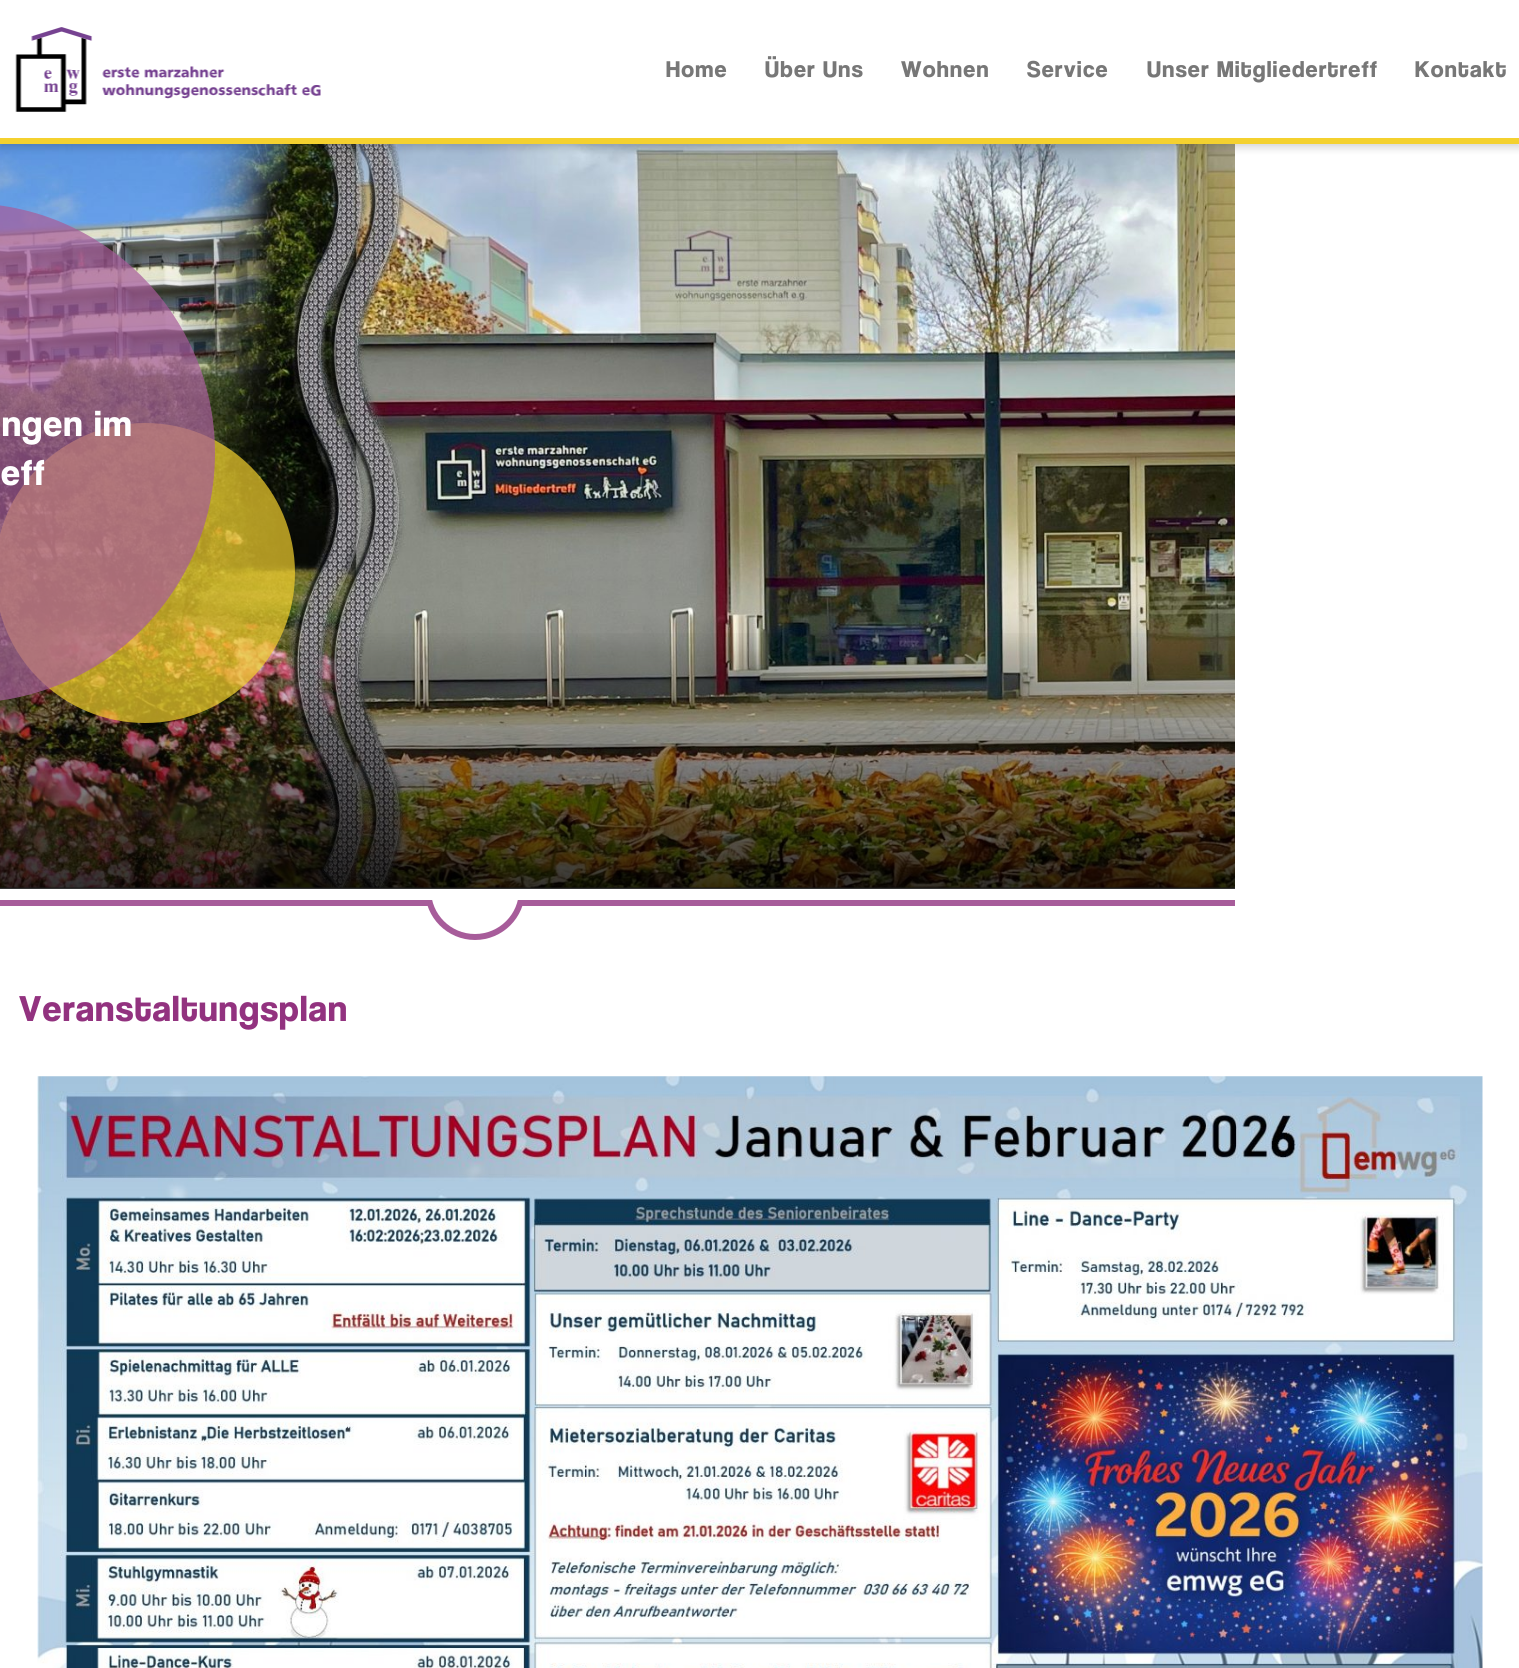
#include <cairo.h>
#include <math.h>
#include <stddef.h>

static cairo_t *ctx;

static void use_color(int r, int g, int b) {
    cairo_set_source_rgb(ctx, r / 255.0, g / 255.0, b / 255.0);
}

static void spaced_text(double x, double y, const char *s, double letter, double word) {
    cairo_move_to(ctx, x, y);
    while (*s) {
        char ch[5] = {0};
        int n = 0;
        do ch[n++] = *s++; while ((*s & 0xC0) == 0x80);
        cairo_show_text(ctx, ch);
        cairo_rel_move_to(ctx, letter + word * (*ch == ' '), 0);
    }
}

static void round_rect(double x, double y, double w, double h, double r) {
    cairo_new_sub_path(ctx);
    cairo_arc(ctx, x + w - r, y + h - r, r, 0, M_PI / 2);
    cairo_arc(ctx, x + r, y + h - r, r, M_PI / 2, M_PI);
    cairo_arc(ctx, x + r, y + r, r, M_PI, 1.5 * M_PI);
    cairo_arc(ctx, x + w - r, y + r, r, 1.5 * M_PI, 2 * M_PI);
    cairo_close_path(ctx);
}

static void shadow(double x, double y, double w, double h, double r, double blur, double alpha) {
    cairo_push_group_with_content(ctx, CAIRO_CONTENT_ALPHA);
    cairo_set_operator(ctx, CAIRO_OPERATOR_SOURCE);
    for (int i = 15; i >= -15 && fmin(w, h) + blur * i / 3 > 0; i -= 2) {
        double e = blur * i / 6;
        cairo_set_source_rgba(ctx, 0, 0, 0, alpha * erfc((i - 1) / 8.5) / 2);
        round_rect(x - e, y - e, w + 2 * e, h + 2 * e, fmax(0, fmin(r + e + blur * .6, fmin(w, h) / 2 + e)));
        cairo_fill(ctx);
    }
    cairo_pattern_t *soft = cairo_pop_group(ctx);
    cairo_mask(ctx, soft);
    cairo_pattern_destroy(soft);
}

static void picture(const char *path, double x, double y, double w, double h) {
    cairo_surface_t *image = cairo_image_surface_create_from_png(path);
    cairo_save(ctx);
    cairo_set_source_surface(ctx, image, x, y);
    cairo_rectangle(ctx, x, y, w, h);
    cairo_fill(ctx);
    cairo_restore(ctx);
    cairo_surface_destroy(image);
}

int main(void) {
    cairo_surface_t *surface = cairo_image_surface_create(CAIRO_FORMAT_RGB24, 1519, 1668);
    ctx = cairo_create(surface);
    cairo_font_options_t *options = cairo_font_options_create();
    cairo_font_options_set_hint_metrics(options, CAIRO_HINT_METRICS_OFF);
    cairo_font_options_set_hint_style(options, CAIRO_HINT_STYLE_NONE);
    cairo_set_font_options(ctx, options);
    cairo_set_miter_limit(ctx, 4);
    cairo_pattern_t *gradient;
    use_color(255, 255, 255);
    cairo_paint(ctx);
    use_color(167, 92, 154);
    cairo_rectangle(ctx, 0, 900, 1235, 6);
    cairo_fill(ctx);
    cairo_arc(ctx, 475, 890, 50, 0, 2 * M_PI);
    cairo_fill(ctx);
    use_color(255, 255, 255);
    cairo_arc(ctx, 475, 890, 44, 0, 2 * M_PI);
    cairo_fill(ctx);
    use_color(119, 119, 119);
    cairo_rectangle(ctx, 0, 887, 1235, 1);
    cairo_fill(ctx);
    picture("img2.png", 0, 144, 1235, 744);
    use_color(0, 0, 0);
    shadow(0, 4, 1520, 144, 0, 4, 0.16);
    use_color(255, 255, 255);
    cairo_rectangle(ctx, 0, 0, 1519, 138);
    cairo_fill(ctx);
    use_color(244, 209, 47);
    cairo_rectangle(ctx, 0, 138, 1519, 6);
    cairo_fill(ctx);
    picture("img1.png", 15, 27, 306, 85);
    cairo_select_font_face(ctx, "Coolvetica", CAIRO_FONT_SLANT_NORMAL, CAIRO_FONT_WEIGHT_BOLD);
    cairo_set_font_size(ctx, 23.75);
    use_color(119, 119, 119);
    spaced_text(666, 77, "Home", 1.25, 0);
    spaced_text(765, 77, "Über Uns", 1.25, 0);
    spaced_text(901, 77, "Wohnen", 1.25, 0);
    spaced_text(1027, 77, "Service", 1.25, 0);
    spaced_text(1147, 77, "Unser Mitgliedertreff", 1.25, 0);
    spaced_text(1415, 77, "Kontakt", 1.25, 0);
    use_color(255, 255, 255);
    cairo_rectangle(ctx, 425, 888, 100, 12);
    cairo_fill(ctx);
    gradient = cairo_pattern_create_linear(475, 626, 475, 889);
    cairo_pattern_add_color_stop_rgba(gradient, 0, 0, 0, 0, 0);
    cairo_pattern_add_color_stop_rgba(gradient, 1, 0, 0, 0, 0.8);
    cairo_set_source(ctx, gradient);
    cairo_pattern_destroy(gradient);
    cairo_rectangle(ctx, 0, 633, 1235, 256);
    cairo_fill(ctx);
    cairo_set_source_rgba(ctx, 0.957, 0.82, 0.184, 0.7);
    cairo_arc(ctx, 145, 573, 150, 0, 2 * M_PI);
    cairo_fill(ctx);
    cairo_set_source_rgba(ctx, 0.655, 0.361, 0.604, 0.7);
    cairo_new_path(ctx);
    cairo_move_to(ctx, 0, 203);
    cairo_line_to(ctx, -35, 203);
    cairo_curve_to(ctx, 103, 203, 215, 315, 215, 453);
    cairo_curve_to(ctx, 215, 591, 103, 703, -35, 703);
    cairo_line_to(ctx, 0, 703);
    cairo_close_path(ctx);
    cairo_fill(ctx);
    cairo_set_font_size(ctx, 37.5);
    use_color(255, 255, 255);
    spaced_text(2, 436, "ngen im", 1.25, 0);
    spaced_text(1, 485, "eff", 1.25, 0);
    use_color(146, 50, 127);
    spaced_text(19, 1021, "Veranstaltungsplan", 1.25, 0);
    picture("img3.png", 37, 1076, 1446, 592);
    cairo_surface_write_to_png(surface, "result.png");
    cairo_font_options_destroy(options);
    cairo_destroy(ctx);
    cairo_surface_destroy(surface);
    return 0;
}
